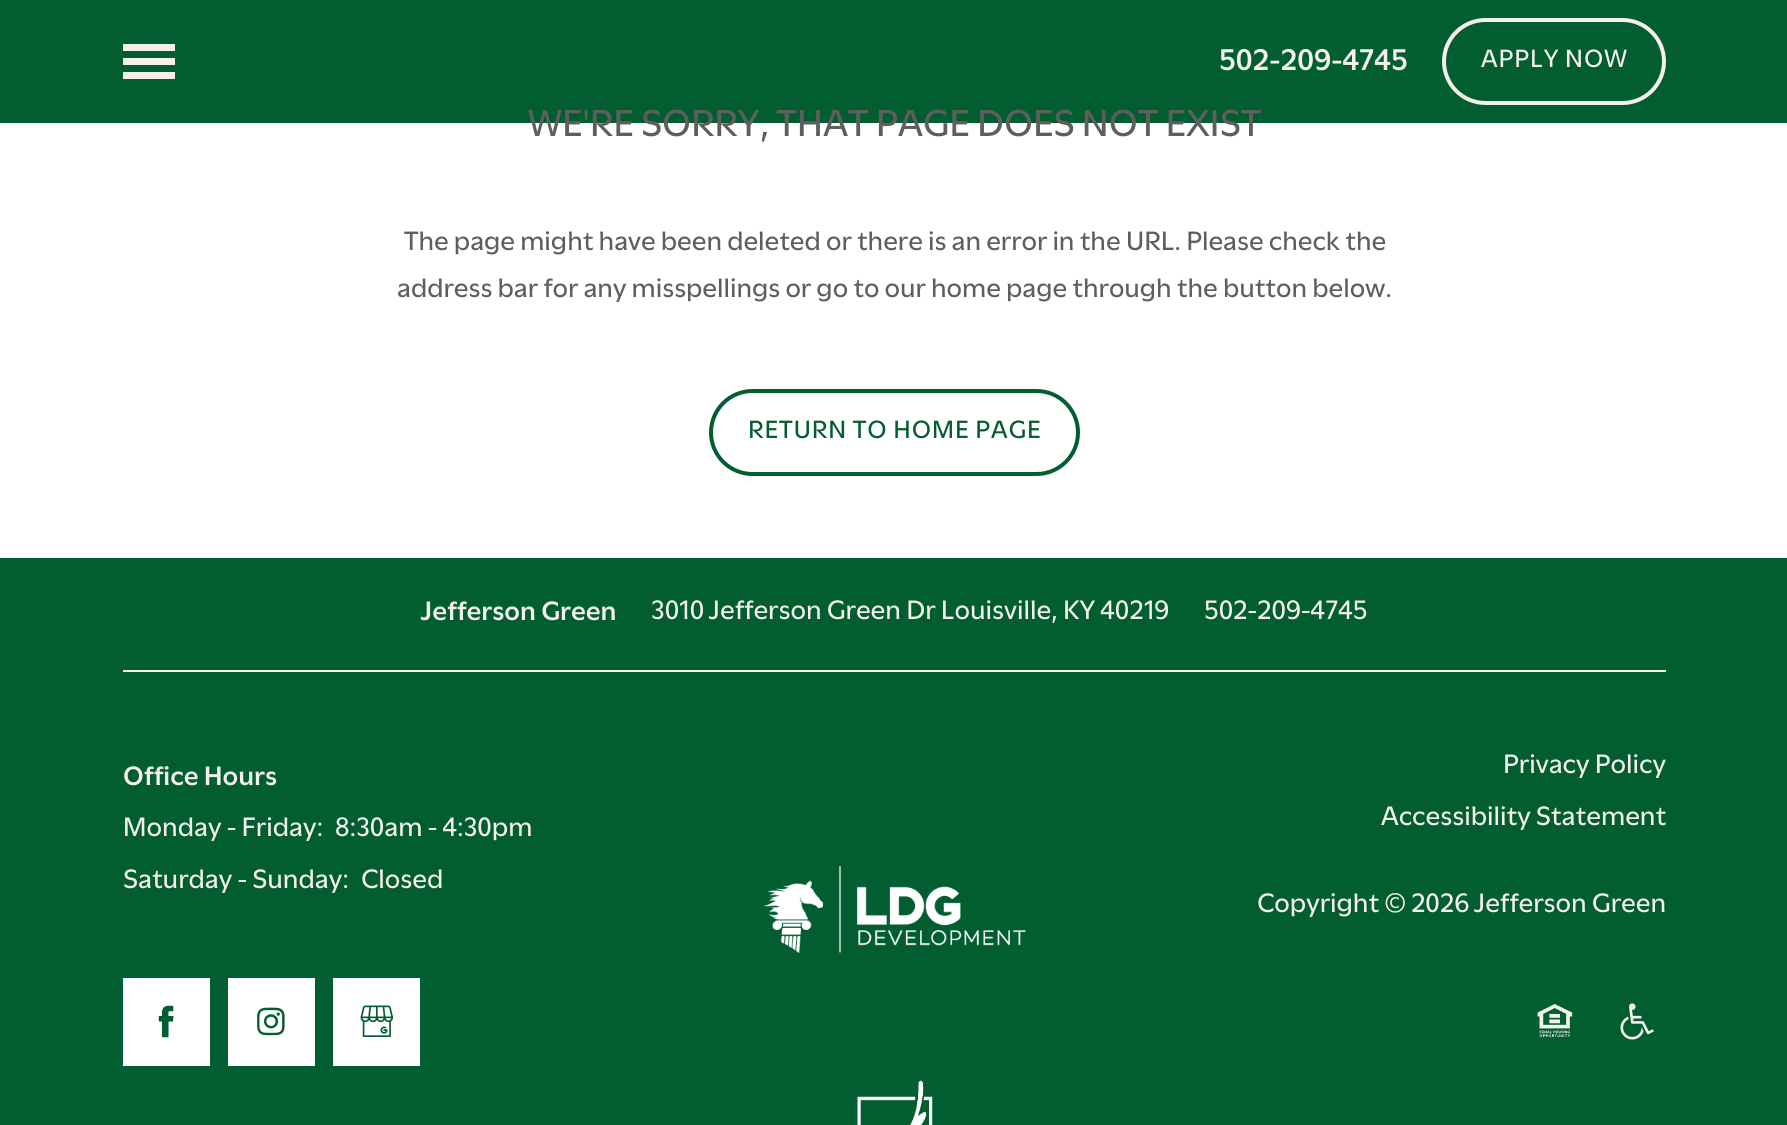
#include <cairo.h>
#include <math.h>
#include <stddef.h>

static cairo_t *ctx;

static void use_color(int r, int g, int b) {
    cairo_set_source_rgb(ctx, r / 255.0, g / 255.0, b / 255.0);
}

static void spaced_text(double x, double y, const char *s, double letter, double word) {
    cairo_move_to(ctx, x, y);
    while (*s) {
        char ch[5] = {0};
        int n = 0;
        do ch[n++] = *s++; while ((*s & 0xC0) == 0x80);
        cairo_show_text(ctx, ch);
        cairo_rel_move_to(ctx, letter + word * (*ch == ' '), 0);
    }
}

static void round_rect(double x, double y, double w, double h, double r) {
    cairo_new_sub_path(ctx);
    cairo_arc(ctx, x + w - r, y + h - r, r, 0, M_PI / 2);
    cairo_arc(ctx, x + r, y + h - r, r, M_PI / 2, M_PI);
    cairo_arc(ctx, x + r, y + r, r, M_PI, 1.5 * M_PI);
    cairo_arc(ctx, x + w - r, y + r, r, 1.5 * M_PI, 2 * M_PI);
    cairo_close_path(ctx);
}

static void picture(const char *path, double x, double y, double w, double h) {
    cairo_surface_t *image = cairo_image_surface_create_from_png(path);
    cairo_save(ctx);
    cairo_set_source_surface(ctx, image, x, y);
    cairo_rectangle(ctx, x, y, w, h);
    cairo_fill(ctx);
    cairo_restore(ctx);
    cairo_surface_destroy(image);
}

int main(void) {
    cairo_surface_t *surface = cairo_image_surface_create(CAIRO_FORMAT_RGB24, 1787, 1125);
    ctx = cairo_create(surface);
    cairo_font_options_t *options = cairo_font_options_create();
    cairo_font_options_set_hint_metrics(options, CAIRO_HINT_METRICS_OFF);
    cairo_font_options_set_hint_style(options, CAIRO_HINT_STYLE_NONE);
    cairo_set_font_options(ctx, options);
    cairo_set_miter_limit(ctx, 4);
    use_color(255, 255, 255);
    cairo_paint(ctx);
    use_color(2, 93, 48);
    cairo_rectangle(ctx, 0, 0, 1787, 123);
    cairo_fill(ctx);
    use_color(245, 241, 233);
    cairo_rectangle(ctx, 123, 44, 52, 7);
    cairo_fill(ctx);
    cairo_rectangle(ctx, 123, 58, 52, 7);
    cairo_fill(ctx);
    cairo_rectangle(ctx, 123, 72, 52, 7);
    cairo_fill(ctx);
    cairo_select_font_face(ctx, "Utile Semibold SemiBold", CAIRO_FONT_SLANT_NORMAL, CAIRO_FONT_WEIGHT_NORMAL);
    cairo_set_font_size(ctx, 31.5);
    cairo_move_to(ctx, 1219, 70);
    cairo_show_text(ctx, "502-209-4745");
    round_rect(1444, 20, 220, 83, 41.5);
    cairo_set_line_width(ctx, 4);
    cairo_stroke(ctx);
    cairo_select_font_face(ctx, "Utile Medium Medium", CAIRO_FONT_SLANT_NORMAL, CAIRO_FONT_WEIGHT_NORMAL);
    cairo_set_font_size(ctx, 26.25);
    spaced_text(1481, 67, "APPLY NOW", 0.9, 0);
    cairo_set_font_size(ctx, 39.4);
    use_color(94, 94, 94);
    cairo_move_to(ctx, 528, 136);
    cairo_show_text(ctx, "WE'RE SORRY, THAT PAGE DOES NOT EXIST");
    cairo_set_font_size(ctx, 27.9);
    cairo_move_to(ctx, 404, 250);
    cairo_show_text(ctx, "The page might have been deleted or there is an error in the URL. Please check the");
    cairo_move_to(ctx, 397, 297);
    cairo_show_text(ctx, "address bar for any misspellings or go to our home page through the button below.");
    round_rect(711, 391, 367, 83, 41.5);
    use_color(2, 93, 48);
    cairo_stroke(ctx);
    cairo_set_font_size(ctx, 26.25);
    spaced_text(748, 438, "RETURN TO HOME PAGE", 0.9, 0);
    cairo_rectangle(ctx, 0, 558, 1787, 567);
    cairo_fill(ctx);
    use_color(245, 241, 233);
    cairo_rectangle(ctx, 123, 670, 1543, 2);
    cairo_fill(ctx);
    cairo_select_font_face(ctx, "Utile Semibold SemiBold", CAIRO_FONT_SLANT_NORMAL, CAIRO_FONT_WEIGHT_NORMAL);
    cairo_set_font_size(ctx, 28);
    cairo_move_to(ctx, 421, 620);
    cairo_show_text(ctx, "Jefferson Green");
    cairo_select_font_face(ctx, "Utile Medium Medium", CAIRO_FONT_SLANT_NORMAL, CAIRO_FONT_WEIGHT_NORMAL);
    cairo_move_to(ctx, 651, 619);
    cairo_show_text(ctx, "3010 Jefferson Green Dr Louisville, KY 40219");
    cairo_move_to(ctx, 1204, 619);
    cairo_show_text(ctx, "502-209-4745");
    cairo_select_font_face(ctx, "Utile Semibold SemiBold", CAIRO_FONT_SLANT_NORMAL, CAIRO_FONT_WEIGHT_NORMAL);
    cairo_move_to(ctx, 123, 785);
    cairo_show_text(ctx, "Office Hours");
    cairo_select_font_face(ctx, "Utile Medium Medium", CAIRO_FONT_SLANT_NORMAL, CAIRO_FONT_WEIGHT_NORMAL);
    cairo_move_to(ctx, 123, 836);
    cairo_show_text(ctx, "Monday - Friday:");
    cairo_move_to(ctx, 335, 836);
    cairo_show_text(ctx, "8:30am - 4:30pm");
    cairo_move_to(ctx, 123, 888);
    cairo_show_text(ctx, "Saturday - Sunday:");
    cairo_move_to(ctx, 361, 888);
    cairo_show_text(ctx, "Closed");
    use_color(255, 255, 255);
    cairo_rectangle(ctx, 123, 978, 87, 88);
    cairo_fill(ctx);
    picture("img1.png", 158, 1005, 16, 33);
    cairo_rectangle(ctx, 228, 978, 87, 88);
    cairo_fill(ctx);
    picture("img2.png", 257, 1007, 28, 29);
    cairo_rectangle(ctx, 333, 978, 87, 88);
    cairo_fill(ctx);
    picture("img3.png", 360, 1005, 34, 32);
    use_color(245, 241, 233);
    cairo_move_to(ctx, 1503, 773);
    cairo_show_text(ctx, "Privacy Policy");
    cairo_move_to(ctx, 1381, 825);
    cairo_show_text(ctx, "Accessibility Statement");
    cairo_move_to(ctx, 1257, 912);
    cairo_show_text(ctx, "Copyright © 2026 Jefferson Green");
    picture("img4.png", 1537, 1004, 36, 34);
    picture("img5.png", 1620, 1003, 34, 37);
    picture("img6.png", 763, 866, 263, 88);
    picture("img7.png", 857, 1080, 76, 45);
    cairo_surface_write_to_png(surface, "result.png");
    cairo_font_options_destroy(options);
    cairo_destroy(ctx);
    cairo_surface_destroy(surface);
    return 0;
}
